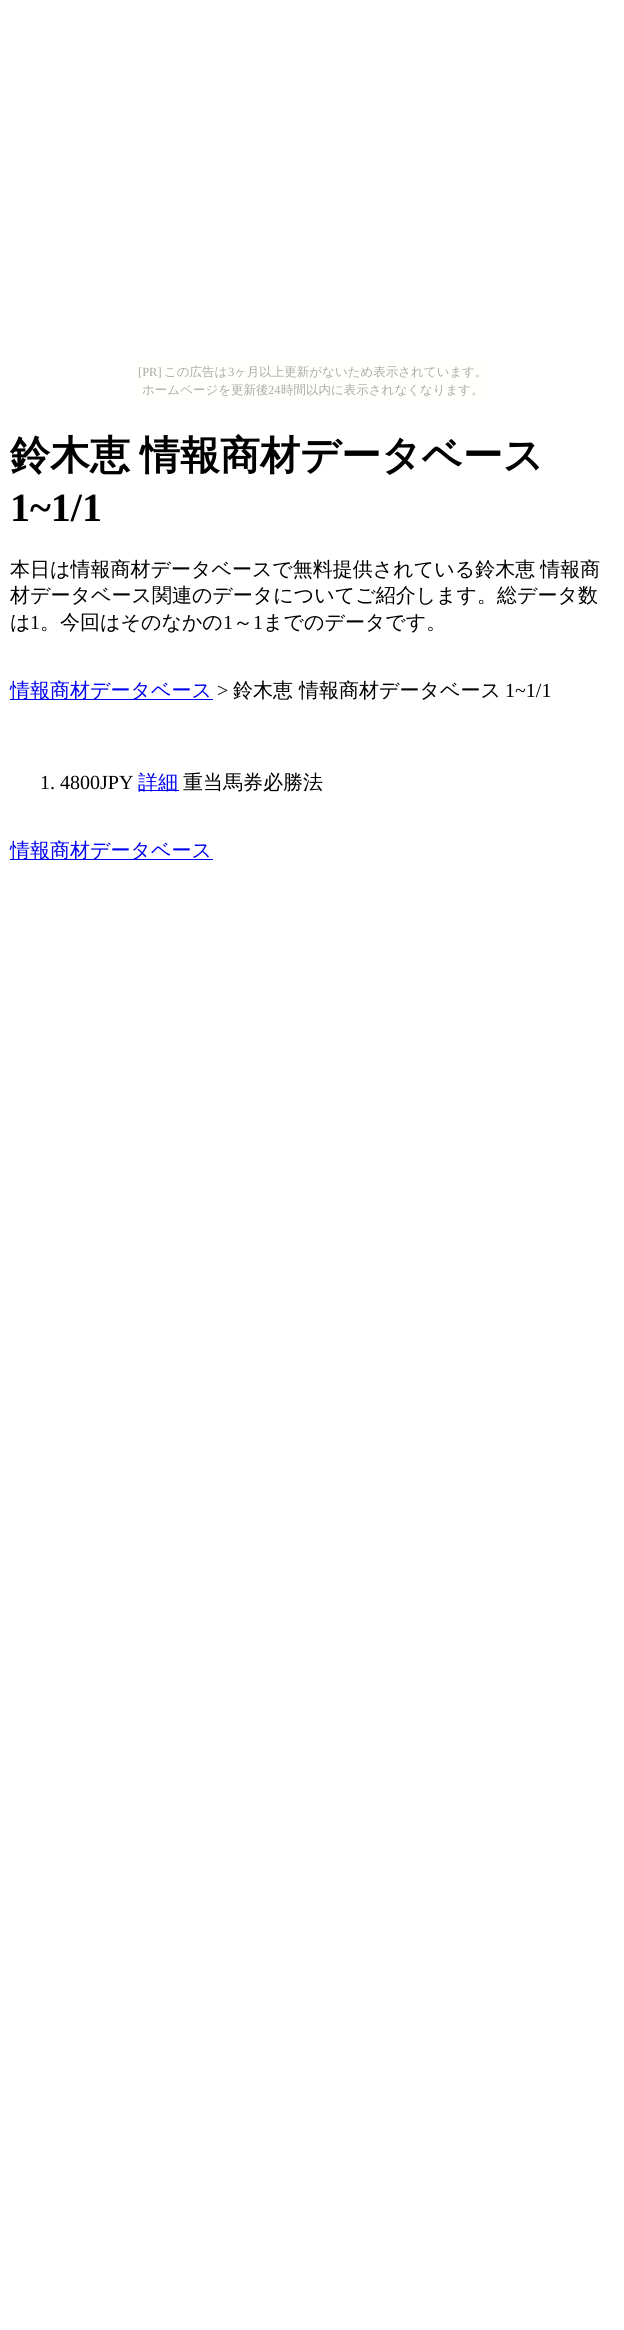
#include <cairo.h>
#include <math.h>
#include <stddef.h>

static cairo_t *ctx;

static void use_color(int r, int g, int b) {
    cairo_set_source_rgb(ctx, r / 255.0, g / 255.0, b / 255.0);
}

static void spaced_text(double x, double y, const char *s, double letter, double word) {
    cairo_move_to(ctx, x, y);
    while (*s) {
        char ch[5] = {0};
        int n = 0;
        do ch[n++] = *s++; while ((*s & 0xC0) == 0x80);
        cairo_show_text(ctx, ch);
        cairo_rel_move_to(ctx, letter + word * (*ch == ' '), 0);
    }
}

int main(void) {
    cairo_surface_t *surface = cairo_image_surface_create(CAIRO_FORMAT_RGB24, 624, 2330);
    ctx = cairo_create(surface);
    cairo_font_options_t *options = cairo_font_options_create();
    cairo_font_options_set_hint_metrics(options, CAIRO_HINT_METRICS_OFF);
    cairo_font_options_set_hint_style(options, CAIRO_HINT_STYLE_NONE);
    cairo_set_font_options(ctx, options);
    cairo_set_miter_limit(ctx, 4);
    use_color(255, 255, 255);
    cairo_paint(ctx);
    use_color(255, 255, 252);
    cairo_rectangle(ctx, 134, 360, 357, 43);
    cairo_fill(ctx);
    cairo_select_font_face(ctx, "Liberation Serif", CAIRO_FONT_SLANT_NORMAL, CAIRO_FONT_WEIGHT_NORMAL);
    cairo_set_font_size(ctx, 12.5);
    use_color(170, 170, 170);
    cairo_move_to(ctx, 138, 376);
    cairo_show_text(ctx, "[PR]");
    cairo_select_font_face(ctx, "WenQuanYi Zen Hei Medium", CAIRO_FONT_SLANT_NORMAL, CAIRO_FONT_WEIGHT_NORMAL);
    cairo_move_to(ctx, 164, 376);
    cairo_show_text(ctx, "この広告は");
    cairo_select_font_face(ctx, "Liberation Serif", CAIRO_FONT_SLANT_NORMAL, CAIRO_FONT_WEIGHT_NORMAL);
    cairo_move_to(ctx, 228, 376);
    cairo_show_text(ctx, "3");
    cairo_select_font_face(ctx, "WenQuanYi Zen Hei Medium", CAIRO_FONT_SLANT_NORMAL, CAIRO_FONT_WEIGHT_NORMAL);
    cairo_move_to(ctx, 234, 376);
    cairo_show_text(ctx, "ヶ月以上更新がないため表示されています。");
    cairo_move_to(ctx, 142, 394);
    cairo_show_text(ctx, "ホームページを更新後");
    cairo_select_font_face(ctx, "Liberation Serif", CAIRO_FONT_SLANT_NORMAL, CAIRO_FONT_WEIGHT_NORMAL);
    cairo_move_to(ctx, 268, 394);
    cairo_show_text(ctx, "24");
    cairo_select_font_face(ctx, "WenQuanYi Zen Hei Medium", CAIRO_FONT_SLANT_NORMAL, CAIRO_FONT_WEIGHT_NORMAL);
    cairo_move_to(ctx, 281, 394);
    cairo_show_text(ctx, "時間以内に表示されなくなります。");
    cairo_select_font_face(ctx, "WenQuanYi Zen Hei", CAIRO_FONT_SLANT_NORMAL, CAIRO_FONT_WEIGHT_BOLD);
    cairo_set_font_size(ctx, 40);
    use_color(0, 0, 0);
    spaced_text(10, 469, "鈴木恵 情報商材データベース", 0, -2);
    cairo_select_font_face(ctx, "Liberation Serif", CAIRO_FONT_SLANT_NORMAL, CAIRO_FONT_WEIGHT_BOLD);
    cairo_move_to(ctx, 10, 521);
    cairo_show_text(ctx, "1~1/1");
    cairo_select_font_face(ctx, "WenQuanYi Zen Hei Medium", CAIRO_FONT_SLANT_NORMAL, CAIRO_FONT_WEIGHT_NORMAL);
    cairo_set_font_size(ctx, 20);
    spaced_text(10, 576, "本日は情報商材データベースで無料提供されている鈴木恵 情報商", 0, -1);
    cairo_move_to(ctx, 10, 602);
    cairo_show_text(ctx, "材データベース関連のデータについてご紹介します。総データ数");
    cairo_move_to(ctx, 10, 629);
    cairo_show_text(ctx, "は");
    cairo_select_font_face(ctx, "Liberation Serif", CAIRO_FONT_SLANT_NORMAL, CAIRO_FONT_WEIGHT_NORMAL);
    cairo_move_to(ctx, 30, 629);
    cairo_show_text(ctx, "1");
    cairo_select_font_face(ctx, "WenQuanYi Zen Hei Medium", CAIRO_FONT_SLANT_NORMAL, CAIRO_FONT_WEIGHT_NORMAL);
    cairo_move_to(ctx, 40, 629);
    cairo_show_text(ctx, "。今回はそのなかの");
    cairo_select_font_face(ctx, "Liberation Serif", CAIRO_FONT_SLANT_NORMAL, CAIRO_FONT_WEIGHT_NORMAL);
    cairo_move_to(ctx, 223, 629);
    cairo_show_text(ctx, "1");
    cairo_select_font_face(ctx, "WenQuanYi Zen Hei Medium", CAIRO_FONT_SLANT_NORMAL, CAIRO_FONT_WEIGHT_NORMAL);
    cairo_move_to(ctx, 233, 629);
    cairo_show_text(ctx, "～");
    cairo_select_font_face(ctx, "Liberation Serif", CAIRO_FONT_SLANT_NORMAL, CAIRO_FONT_WEIGHT_NORMAL);
    cairo_move_to(ctx, 253, 629);
    cairo_show_text(ctx, "1");
    cairo_select_font_face(ctx, "WenQuanYi Zen Hei Medium", CAIRO_FONT_SLANT_NORMAL, CAIRO_FONT_WEIGHT_NORMAL);
    cairo_move_to(ctx, 263, 629);
    cairo_show_text(ctx, "までのデータです。");
    use_color(0, 0, 238);
    cairo_rectangle(ctx, 10, 699, 203, 1);
    cairo_fill(ctx);
    cairo_move_to(ctx, 10, 697);
    cairo_show_text(ctx, "情報商材データベース");
    cairo_select_font_face(ctx, "Liberation Serif", CAIRO_FONT_SLANT_NORMAL, CAIRO_FONT_WEIGHT_NORMAL);
    use_color(0, 0, 0);
    cairo_move_to(ctx, 217, 697);
    cairo_show_text(ctx, ">");
    cairo_select_font_face(ctx, "WenQuanYi Zen Hei Medium", CAIRO_FONT_SLANT_NORMAL, CAIRO_FONT_WEIGHT_NORMAL);
    cairo_move_to(ctx, 233, 697);
    cairo_show_text(ctx, "鈴木恵 情報商材データベース");
    cairo_select_font_face(ctx, "Liberation Serif", CAIRO_FONT_SLANT_NORMAL, CAIRO_FONT_WEIGHT_NORMAL);
    cairo_move_to(ctx, 505, 697);
    cairo_show_text(ctx, "1~1/1");
    cairo_move_to(ctx, 40, 789);
    cairo_show_text(ctx, "1. 4800JPY");
    use_color(0, 0, 238);
    cairo_rectangle(ctx, 139, 790, 40, 1);
    cairo_fill(ctx);
    cairo_select_font_face(ctx, "WenQuanYi Zen Hei Medium", CAIRO_FONT_SLANT_NORMAL, CAIRO_FONT_WEIGHT_NORMAL);
    cairo_move_to(ctx, 138, 789);
    cairo_show_text(ctx, "詳細");
    use_color(0, 0, 0);
    cairo_move_to(ctx, 183, 789);
    cairo_show_text(ctx, "重当馬券必勝法");
    use_color(0, 0, 238);
    cairo_rectangle(ctx, 10, 859, 203, 1);
    cairo_fill(ctx);
    cairo_move_to(ctx, 10, 857);
    cairo_show_text(ctx, "情報商材データベース");
    cairo_surface_write_to_png(surface, "result.png");
    cairo_font_options_destroy(options);
    cairo_destroy(ctx);
    cairo_surface_destroy(surface);
    return 0;
}
